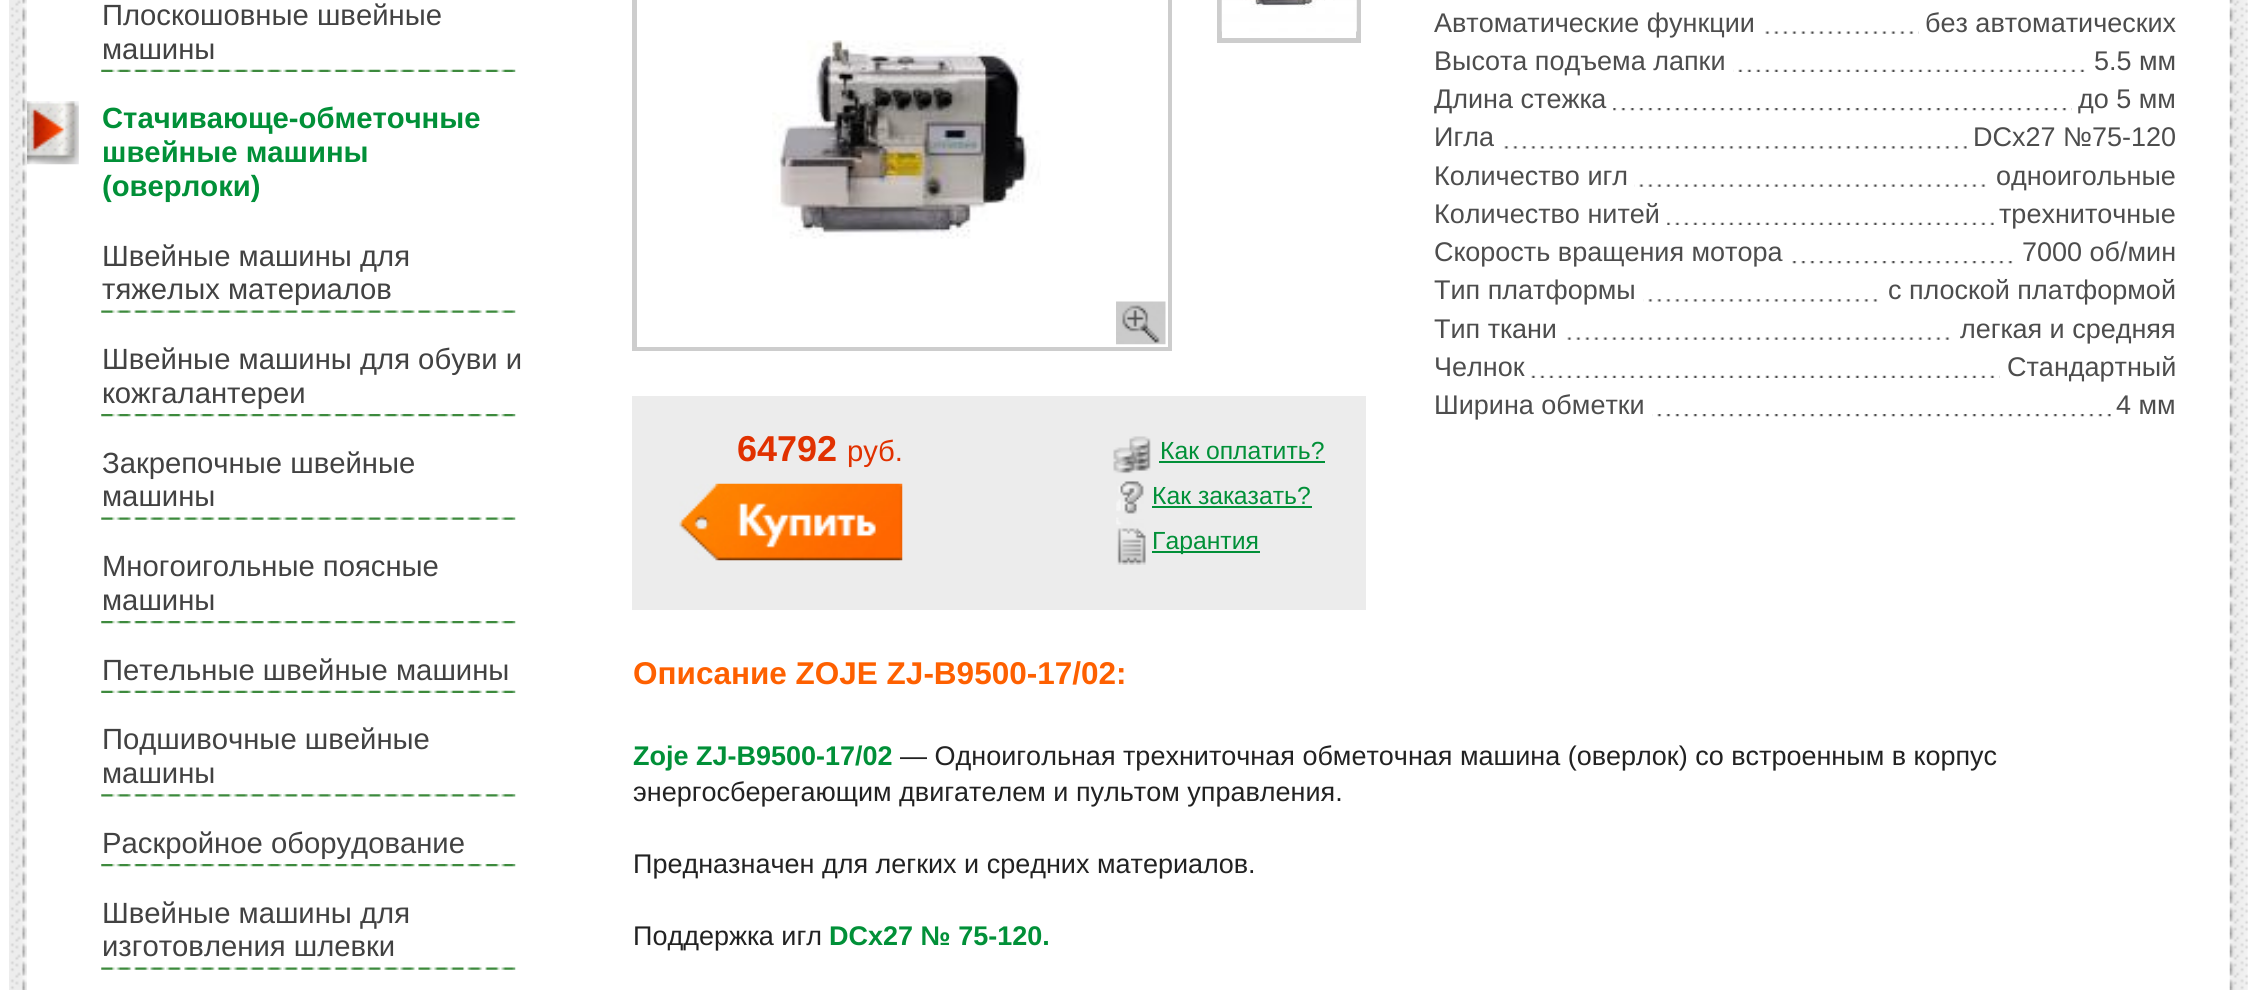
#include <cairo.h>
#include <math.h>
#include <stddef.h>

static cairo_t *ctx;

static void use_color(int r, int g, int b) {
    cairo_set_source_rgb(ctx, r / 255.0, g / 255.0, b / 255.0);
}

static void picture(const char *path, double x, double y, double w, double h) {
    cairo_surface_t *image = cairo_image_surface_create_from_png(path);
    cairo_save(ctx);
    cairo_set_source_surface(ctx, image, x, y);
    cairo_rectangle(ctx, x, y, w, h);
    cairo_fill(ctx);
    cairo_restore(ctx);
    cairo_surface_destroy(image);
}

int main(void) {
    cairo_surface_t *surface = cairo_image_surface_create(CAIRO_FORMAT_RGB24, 2256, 990);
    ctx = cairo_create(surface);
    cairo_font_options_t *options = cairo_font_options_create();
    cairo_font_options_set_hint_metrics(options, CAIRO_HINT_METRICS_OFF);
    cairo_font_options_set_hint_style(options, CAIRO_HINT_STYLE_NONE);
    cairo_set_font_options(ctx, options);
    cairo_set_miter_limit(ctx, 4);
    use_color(255, 255, 255);
    cairo_paint(ctx);
    picture("img1.png", 9, 0, 18, 990);
    picture("img2.png", 101, 69, 415, 3);
    cairo_select_font_face(ctx, "Liberation Sans", CAIRO_FONT_SLANT_NORMAL, CAIRO_FONT_WEIGHT_NORMAL);
    cairo_set_font_size(ctx, 29.25);
    use_color(66, 66, 66);
    cairo_move_to(ctx, 102, 25);
    cairo_show_text(ctx, "Плоскошовные швейные");
    cairo_move_to(ctx, 102, 59);
    cairo_show_text(ctx, "машины");
    picture("img3.png", 27, 101, 52, 64);
    cairo_select_font_face(ctx, "Liberation Sans", CAIRO_FONT_SLANT_NORMAL, CAIRO_FONT_WEIGHT_BOLD);
    use_color(1, 144, 56);
    cairo_move_to(ctx, 102, 128);
    cairo_show_text(ctx, "Стачивающе-обметочные");
    cairo_move_to(ctx, 102, 162);
    cairo_show_text(ctx, "швейные машины");
    cairo_move_to(ctx, 102, 196);
    cairo_show_text(ctx, "(оверлоки)");
    picture("img4.png", 101, 310, 415, 3);
    cairo_select_font_face(ctx, "Liberation Sans", CAIRO_FONT_SLANT_NORMAL, CAIRO_FONT_WEIGHT_NORMAL);
    use_color(66, 66, 66);
    cairo_move_to(ctx, 102, 266);
    cairo_show_text(ctx, "Швейные машины для");
    cairo_move_to(ctx, 102, 299);
    cairo_show_text(ctx, "тяжелых материалов");
    picture("img5.png", 101, 414, 415, 3);
    cairo_move_to(ctx, 102, 369);
    cairo_show_text(ctx, "Швейные машины для обуви и");
    cairo_move_to(ctx, 102, 403);
    cairo_show_text(ctx, "кожгалантереи");
    picture("img4.png", 101, 517, 415, 3);
    cairo_move_to(ctx, 102, 473);
    cairo_show_text(ctx, "Закрепочные швейные");
    cairo_move_to(ctx, 102, 506);
    cairo_show_text(ctx, "машины");
    picture("img5.png", 101, 621, 415, 3);
    cairo_move_to(ctx, 102, 576);
    cairo_show_text(ctx, "Многоигольные поясные");
    cairo_move_to(ctx, 102, 610);
    cairo_show_text(ctx, "машины");
    picture("img2.png", 101, 690, 415, 3);
    cairo_move_to(ctx, 102, 680);
    cairo_show_text(ctx, "Петельные швейные машины");
    picture("img6.png", 101, 794, 415, 3);
    cairo_move_to(ctx, 102, 749);
    cairo_show_text(ctx, "Подшивочные швейные");
    cairo_move_to(ctx, 102, 783);
    cairo_show_text(ctx, "машины");
    picture("img5.png", 101, 864, 415, 3);
    cairo_move_to(ctx, 102, 853);
    cairo_show_text(ctx, "Раскройное оборудование");
    picture("img4.png", 101, 967, 415, 3);
    cairo_move_to(ctx, 102, 923);
    cairo_show_text(ctx, "Швейные машины для");
    cairo_move_to(ctx, 102, 956);
    cairo_show_text(ctx, "изготовления шлевки");
    picture("img7.png", 1762, 31, 157, 3);
    cairo_set_font_size(ctx, 27);
    use_color(77, 77, 77);
    cairo_move_to(ctx, 1434, 32);
    cairo_show_text(ctx, "Автоматические функции");
    cairo_move_to(ctx, 1925, 32);
    cairo_show_text(ctx, "без автоматических");
    picture("img8.png", 1733, 69, 355, 3);
    cairo_move_to(ctx, 1434, 70);
    cairo_show_text(ctx, "Высота подъема лапки");
    cairo_move_to(ctx, 2094, 70);
    cairo_show_text(ctx, "5.5 мм");
    picture("img9.png", 1613, 108, 459, 3);
    cairo_move_to(ctx, 1434, 108);
    cairo_show_text(ctx, "Длина стежка");
    cairo_move_to(ctx, 2078, 108);
    cairo_show_text(ctx, "до 5 мм");
    picture("img10.png", 1501, 146, 466, 3);
    cairo_move_to(ctx, 1434, 146);
    cairo_show_text(ctx, "Игла");
    cairo_move_to(ctx, 1973, 146);
    cairo_show_text(ctx, "DCx27 №75-120");
    picture("img11.png", 1634, 184, 355, 3);
    cairo_move_to(ctx, 1434, 185);
    cairo_show_text(ctx, "Количество игл");
    cairo_move_to(ctx, 1996, 185);
    cairo_show_text(ctx, "одноигольные");
    picture("img12.png", 1667, 222, 327, 3);
    cairo_move_to(ctx, 1434, 223);
    cairo_show_text(ctx, "Количество нитей");
    cairo_move_to(ctx, 1999, 223);
    cairo_show_text(ctx, "трехниточные");
    picture("img13.png", 1789, 261, 227, 3);
    cairo_move_to(ctx, 1434, 261);
    cairo_show_text(ctx, "Скорость вращения мотора");
    cairo_move_to(ctx, 2022, 261);
    cairo_show_text(ctx, "7000 об/мин");
    picture("img14.png", 1643, 299, 238, 3);
    cairo_move_to(ctx, 1434, 299);
    cairo_show_text(ctx, "Тип платформы");
    cairo_move_to(ctx, 1888, 299);
    cairo_show_text(ctx, "с плоской платформой");
    picture("img15.png", 1564, 337, 389, 3);
    cairo_move_to(ctx, 1434, 338);
    cairo_show_text(ctx, "Тип ткани");
    cairo_move_to(ctx, 1960, 338);
    cairo_show_text(ctx, "легкая и средняя");
    picture("img16.png", 1530, 375, 470, 3);
    cairo_move_to(ctx, 1434, 376);
    cairo_show_text(ctx, "Челнок");
    cairo_move_to(ctx, 2007, 376);
    cairo_show_text(ctx, "Стандартный");
    picture("img17.png", 1652, 414, 459, 3);
    cairo_move_to(ctx, 1434, 414);
    cairo_show_text(ctx, "Ширина обметки");
    cairo_move_to(ctx, 2116, 414);
    cairo_show_text(ctx, "4 мм");
    cairo_rectangle(ctx, 634.5, -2.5, 535, 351);
    use_color(205, 205, 205);
    cairo_set_line_width(ctx, 5);
    cairo_stroke(ctx);
    cairo_rectangle(ctx, 638, -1, 529, 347);
    use_color(255, 255, 255);
    cairo_set_line_width(ctx, 2);
    cairo_stroke(ctx);
    picture("img18.png", 772, 40, 269, 199);
    picture("img19.png", 1116, 301, 50, 44);
    cairo_rectangle(ctx, 1219.5, -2.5, 139, 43);
    use_color(205, 205, 205);
    cairo_set_line_width(ctx, 5);
    cairo_stroke(ctx);
    picture("img20.png", 1221, 0, 136, 32);
    use_color(236, 236, 236);
    cairo_rectangle(ctx, 632, 396, 734, 214);
    cairo_fill(ctx);
    cairo_select_font_face(ctx, "Liberation Sans", CAIRO_FONT_SLANT_NORMAL, CAIRO_FONT_WEIGHT_BOLD);
    cairo_set_font_size(ctx, 36);
    use_color(225, 49, 0);
    cairo_move_to(ctx, 737, 461);
    cairo_show_text(ctx, "64792");
    cairo_select_font_face(ctx, "Liberation Sans", CAIRO_FONT_SLANT_NORMAL, CAIRO_FONT_WEIGHT_NORMAL);
    cairo_set_font_size(ctx, 29.25);
    cairo_move_to(ctx, 847, 461);
    cairo_show_text(ctx, "руб.");
    picture("img21.png", 679, 483, 224, 78);
    picture("img22.png", 1113, 436, 38, 38);
    cairo_set_font_size(ctx, 24.75);
    use_color(1, 144, 56);
    cairo_move_to(ctx, 1160, 459);
    cairo_show_text(ctx, "Как оплатить?");
    cairo_rectangle(ctx, 1159, 461, 166, 2);
    cairo_fill(ctx);
    picture("img23.png", 1116, 481, 28, 39);
    cairo_move_to(ctx, 1152, 504);
    cairo_show_text(ctx, "Как заказать?");
    cairo_rectangle(ctx, 1152, 506, 160, 2);
    cairo_fill(ctx);
    picture("img24.png", 1116, 520, 30, 45);
    cairo_rectangle(ctx, 1152, 551, 108, 2);
    cairo_fill(ctx);
    cairo_move_to(ctx, 1152, 549);
    cairo_show_text(ctx, "Гарантия");
    cairo_select_font_face(ctx, "Liberation Sans", CAIRO_FONT_SLANT_NORMAL, CAIRO_FONT_WEIGHT_BOLD);
    cairo_set_font_size(ctx, 31.5);
    use_color(254, 96, 0);
    cairo_move_to(ctx, 633, 684);
    cairo_show_text(ctx, "Описание ZOJE ZJ-B9500-17/02:");
    cairo_set_font_size(ctx, 27);
    use_color(1, 144, 56);
    cairo_move_to(ctx, 633, 765);
    cairo_show_text(ctx, "Zoje ZJ-B9500-17/02");
    cairo_select_font_face(ctx, "Liberation Sans", CAIRO_FONT_SLANT_NORMAL, CAIRO_FONT_WEIGHT_NORMAL);
    use_color(34, 34, 34);
    cairo_move_to(ctx, 900, 765);
    cairo_show_text(ctx, "— Одноигольная трехниточная обметочная машина (оверлок) со встроенным в корпус");
    cairo_move_to(ctx, 633, 801);
    cairo_show_text(ctx, "энергосберегающим двигателем и пультом управления.");
    cairo_move_to(ctx, 633, 873);
    cairo_show_text(ctx, "Предназначен для легких и средних материалов.");
    cairo_move_to(ctx, 633, 945);
    cairo_show_text(ctx, "Поддержка игл");
    cairo_select_font_face(ctx, "Liberation Sans", CAIRO_FONT_SLANT_NORMAL, CAIRO_FONT_WEIGHT_BOLD);
    use_color(1, 144, 56);
    cairo_move_to(ctx, 829, 945);
    cairo_show_text(ctx, "DCx27 № 75-120.");
    picture("img25.png", 2229, 0, 19, 990);
    cairo_surface_write_to_png(surface, "result.png");
    cairo_font_options_destroy(options);
    cairo_destroy(ctx);
    cairo_surface_destroy(surface);
    return 0;
}
